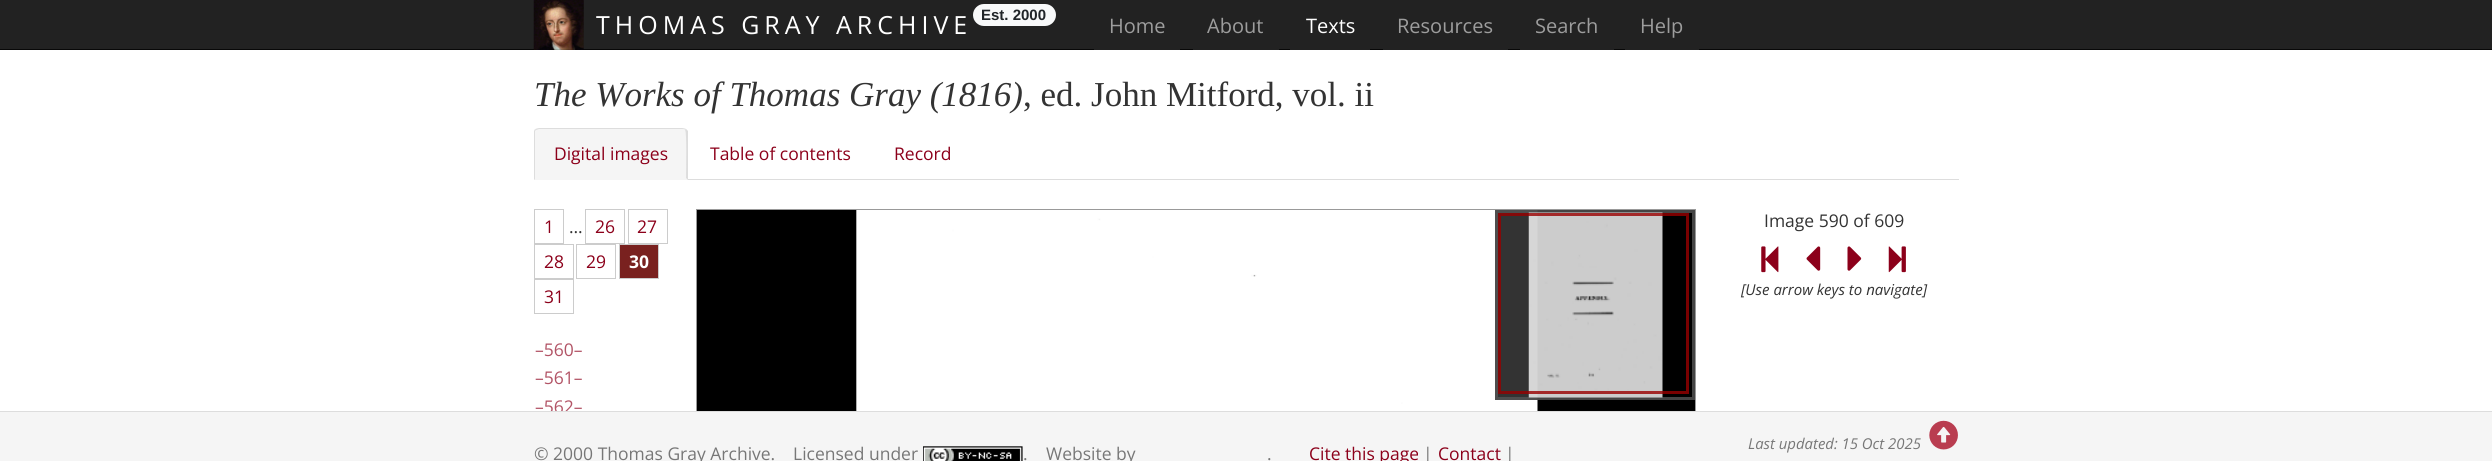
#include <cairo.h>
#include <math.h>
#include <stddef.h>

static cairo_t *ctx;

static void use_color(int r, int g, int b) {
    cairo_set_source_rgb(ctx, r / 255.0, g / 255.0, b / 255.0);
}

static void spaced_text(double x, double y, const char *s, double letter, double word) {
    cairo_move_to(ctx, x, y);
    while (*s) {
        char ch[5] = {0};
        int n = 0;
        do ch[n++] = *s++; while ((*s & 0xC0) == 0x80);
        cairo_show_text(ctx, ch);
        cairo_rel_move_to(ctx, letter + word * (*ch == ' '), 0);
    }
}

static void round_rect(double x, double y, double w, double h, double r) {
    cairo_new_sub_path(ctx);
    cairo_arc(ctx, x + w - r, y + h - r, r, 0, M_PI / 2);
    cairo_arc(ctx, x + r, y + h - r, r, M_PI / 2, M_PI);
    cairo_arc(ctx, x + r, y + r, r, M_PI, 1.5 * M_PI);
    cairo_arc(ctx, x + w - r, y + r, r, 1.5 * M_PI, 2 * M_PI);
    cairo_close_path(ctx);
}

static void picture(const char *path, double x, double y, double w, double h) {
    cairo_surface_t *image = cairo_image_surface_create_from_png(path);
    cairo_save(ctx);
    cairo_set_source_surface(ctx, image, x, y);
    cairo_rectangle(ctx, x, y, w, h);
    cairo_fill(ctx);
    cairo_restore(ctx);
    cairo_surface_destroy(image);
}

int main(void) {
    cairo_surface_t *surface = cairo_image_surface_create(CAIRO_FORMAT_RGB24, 2492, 461);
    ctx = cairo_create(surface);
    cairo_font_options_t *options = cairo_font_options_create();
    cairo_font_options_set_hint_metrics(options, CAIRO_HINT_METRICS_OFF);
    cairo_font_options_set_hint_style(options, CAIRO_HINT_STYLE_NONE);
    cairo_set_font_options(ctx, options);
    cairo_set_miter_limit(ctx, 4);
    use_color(255, 255, 255);
    cairo_paint(ctx);
    use_color(34, 34, 34);
    cairo_rectangle(ctx, 0, 0, 2492, 49);
    cairo_fill(ctx);
    use_color(8, 8, 8);
    cairo_rectangle(ctx, 0, 49, 2492, 1);
    cairo_fill(ctx);
    picture("img1.png", 533, 0, 51, 50);
    cairo_select_font_face(ctx, "Open Sans", CAIRO_FONT_SLANT_NORMAL, CAIRO_FONT_WEIGHT_NORMAL);
    cairo_set_font_size(ctx, 25);
    use_color(255, 255, 255);
    spaced_text(596, 34, "THOMAS GRAY ARCHIVE", 5, 0);
    use_color(248, 249, 250);
    round_rect(973, 4, 83, 22, 11);
    cairo_fill(ctx);
    cairo_select_font_face(ctx, "Liberation Sans", CAIRO_FONT_SLANT_NORMAL, CAIRO_FONT_WEIGHT_BOLD);
    cairo_set_font_size(ctx, 15);
    use_color(33, 37, 41);
    cairo_move_to(ctx, 981, 20);
    cairo_show_text(ctx, "Est. 2000");
    use_color(34, 34, 34);
    cairo_rectangle(ctx, 1094, 49, 86, 1);
    cairo_fill(ctx);
    cairo_select_font_face(ctx, "Open Sans", CAIRO_FONT_SLANT_NORMAL, CAIRO_FONT_WEIGHT_NORMAL);
    cairo_set_font_size(ctx, 20);
    use_color(157, 157, 157);
    cairo_move_to(ctx, 1109, 33);
    cairo_show_text(ctx, "Home");
    use_color(34, 34, 34);
    cairo_rectangle(ctx, 1193, 49, 86, 1);
    cairo_fill(ctx);
    use_color(157, 157, 157);
    cairo_move_to(ctx, 1207, 33);
    cairo_show_text(ctx, "About");
    use_color(34, 34, 34);
    cairo_rectangle(ctx, 1290, 49, 80, 1);
    cairo_fill(ctx);
    use_color(255, 255, 255);
    cairo_move_to(ctx, 1306, 33);
    cairo_show_text(ctx, "Texts");
    use_color(34, 34, 34);
    cairo_rectangle(ctx, 1383, 49, 125, 1);
    cairo_fill(ctx);
    use_color(157, 157, 157);
    cairo_move_to(ctx, 1397, 33);
    cairo_show_text(ctx, "Resources");
    use_color(34, 34, 34);
    cairo_rectangle(ctx, 1520, 49, 94, 1);
    cairo_fill(ctx);
    use_color(157, 157, 157);
    cairo_move_to(ctx, 1535, 33);
    cairo_show_text(ctx, "Search");
    use_color(34, 34, 34);
    cairo_rectangle(ctx, 1625, 49, 74, 1);
    cairo_fill(ctx);
    use_color(157, 157, 157);
    cairo_move_to(ctx, 1640, 33);
    cairo_show_text(ctx, "Help");
    cairo_select_font_face(ctx, "Liberation Serif", CAIRO_FONT_SLANT_ITALIC, CAIRO_FONT_WEIGHT_NORMAL);
    cairo_set_font_size(ctx, 35);
    use_color(51, 51, 51);
    cairo_move_to(ctx, 534, 106);
    cairo_show_text(ctx, "The Works of Thomas Gray (1816)");
    cairo_select_font_face(ctx, "Liberation Serif", CAIRO_FONT_SLANT_NORMAL, CAIRO_FONT_WEIGHT_NORMAL);
    cairo_move_to(ctx, 1023, 106);
    cairo_show_text(ctx, ", ed. John Mitford, vol. ii");
    use_color(221, 221, 221);
    cairo_rectangle(ctx, 688, 179, 1271, 1);
    cairo_fill(ctx);
    use_color(245, 245, 245);
    cairo_new_path(ctx);
    cairo_move_to(ctx, 539, 128);
    cairo_line_to(ctx, 683, 128);
    cairo_curve_to(ctx, 686, 128, 688, 130, 688, 133);
    cairo_line_to(ctx, 688, 180);
    cairo_line_to(ctx, 534, 180);
    cairo_line_to(ctx, 534, 133);
    cairo_curve_to(ctx, 534, 130, 536, 128, 539, 128);
    cairo_close_path(ctx);
    cairo_fill(ctx);
    use_color(221, 221, 221);
    cairo_new_path(ctx);
    cairo_move_to(ctx, 539, 128);
    cairo_line_to(ctx, 535, 129);
    cairo_line_to(ctx, 536, 130);
    cairo_line_to(ctx, 539, 129);
    cairo_line_to(ctx, 682, 129);
    cairo_curve_to(ctx, 684, 129, 685, 129, 685, 130);
    cairo_line_to(ctx, 686, 129);
    cairo_line_to(ctx, 682, 128);
    cairo_close_path(ctx);
    cairo_fill(ctx);
    cairo_new_path(ctx);
    cairo_move_to(ctx, 688, 131);
    cairo_line_to(ctx, 688, 180);
    cairo_line_to(ctx, 686, 178);
    cairo_curve_to(ctx, 686, 173, 687, 131, 685, 130);
    cairo_line_to(ctx, 686, 129);
    cairo_close_path(ctx);
    cairo_fill(ctx);
    cairo_new_path(ctx);
    cairo_move_to(ctx, 535, 129);
    cairo_line_to(ctx, 534, 131);
    cairo_line_to(ctx, 534, 180);
    cairo_line_to(ctx, 535, 179);
    cairo_line_to(ctx, 535, 131);
    cairo_line_to(ctx, 536, 130);
    cairo_close_path(ctx);
    cairo_fill(ctx);
    cairo_select_font_face(ctx, "Open Sans", CAIRO_FONT_SLANT_NORMAL, CAIRO_FONT_WEIGHT_NORMAL);
    cairo_set_font_size(ctx, 17.5);
    use_color(140, 0, 26);
    cairo_move_to(ctx, 554, 160);
    cairo_show_text(ctx, "Digital images");
    cairo_move_to(ctx, 710, 160);
    cairo_show_text(ctx, "Table of contents");
    cairo_move_to(ctx, 894, 160);
    cairo_show_text(ctx, "Record");
    cairo_rectangle(ctx, 534.5, 209.5, 29, 34);
    use_color(204, 204, 204);
    cairo_set_line_width(ctx, 1);
    cairo_stroke(ctx);
    use_color(140, 0, 26);
    cairo_move_to(ctx, 544, 233);
    cairo_show_text(ctx, "1");
    use_color(51, 51, 51);
    cairo_move_to(ctx, 569, 233);
    cairo_show_text(ctx, "…");
    cairo_rectangle(ctx, 585.5, 209.5, 39, 34);
    use_color(204, 204, 204);
    cairo_stroke(ctx);
    use_color(140, 0, 26);
    cairo_move_to(ctx, 595, 233);
    cairo_show_text(ctx, "26");
    cairo_rectangle(ctx, 628.5, 209.5, 39, 34);
    use_color(204, 204, 204);
    cairo_stroke(ctx);
    use_color(140, 0, 26);
    cairo_move_to(ctx, 637, 233);
    cairo_show_text(ctx, "27");
    cairo_rectangle(ctx, 534.5, 244.5, 39, 34);
    use_color(204, 204, 204);
    cairo_stroke(ctx);
    use_color(140, 0, 26);
    cairo_move_to(ctx, 544, 268);
    cairo_show_text(ctx, "28");
    cairo_rectangle(ctx, 576.5, 244.5, 39, 34);
    use_color(204, 204, 204);
    cairo_stroke(ctx);
    use_color(140, 0, 26);
    cairo_move_to(ctx, 586, 268);
    cairo_show_text(ctx, "29");
    use_color(121, 33, 31);
    cairo_rectangle(ctx, 619.5, 244.5, 39, 34);
    cairo_fill_preserve(ctx);
    use_color(204, 204, 204);
    cairo_stroke(ctx);
    cairo_select_font_face(ctx, "Open Sans", CAIRO_FONT_SLANT_NORMAL, CAIRO_FONT_WEIGHT_BOLD);
    use_color(255, 255, 255);
    cairo_move_to(ctx, 629, 268);
    cairo_show_text(ctx, "30");
    cairo_rectangle(ctx, 534.5, 279.5, 39, 34);
    use_color(204, 204, 204);
    cairo_stroke(ctx);
    cairo_select_font_face(ctx, "Open Sans", CAIRO_FONT_SLANT_NORMAL, CAIRO_FONT_WEIGHT_NORMAL);
    use_color(140, 0, 26);
    cairo_move_to(ctx, 544, 303);
    cairo_show_text(ctx, "31");
    use_color(178, 84, 102);
    cairo_move_to(ctx, 535, 356);
    cairo_show_text(ctx, "–560–");
    cairo_move_to(ctx, 535, 384);
    cairo_show_text(ctx, "–561–");
    cairo_move_to(ctx, 535, 413);
    cairo_show_text(ctx, "–562–");
    use_color(0, 0, 0);
    cairo_rectangle(ctx, 697, 210, 998, 201);
    cairo_fill(ctx);
    cairo_rectangle(ctx, 696.5, 209.5, 999, 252);
    use_color(153, 153, 153);
    cairo_stroke(ctx);
    picture("img2.png", 856, 210, 682, 201);
    cairo_set_source_rgba(ctx, 0, 0, 0, 0.8);
    cairo_rectangle(ctx, 1495, 210, 43, 190);
    cairo_fill(ctx);
    cairo_rectangle(ctx, 1496.5, 211.5, 197, 187);
    cairo_set_source_rgba(ctx, 0.333, 0.333, 0.333, 0.8);
    cairo_set_line_width(ctx, 3);
    cairo_stroke(ctx);
    picture("img3.png", 1528, 212, 135, 186);
    cairo_rectangle(ctx, 1499.5, 214.5, 188, 178);
    cairo_set_source_rgba(ctx, 0.6, 0, 0, 0.8);
    cairo_stroke(ctx);
    use_color(51, 51, 51);
    cairo_move_to(ctx, 1764, 227);
    cairo_show_text(ctx, "Image 590 of 609");
    picture("img4.png", 1761, 246, 18, 27);
    picture("img5.png", 1806, 246, 15, 25);
    picture("img6.png", 1847, 246, 15, 25);
    picture("img7.png", 1888, 246, 18, 27);
    cairo_select_font_face(ctx, "Open Sans", CAIRO_FONT_SLANT_ITALIC, CAIRO_FONT_WEIGHT_NORMAL);
    cairo_set_font_size(ctx, 15);
    cairo_move_to(ctx, 1741, 295);
    cairo_show_text(ctx, "[Use arrow keys to navigate]");
    use_color(245, 245, 245);
    cairo_rectangle(ctx, 0, 412, 2492, 49);
    cairo_fill(ctx);
    use_color(221, 221, 221);
    cairo_rectangle(ctx, 0, 411, 2492, 1);
    cairo_fill(ctx);
    cairo_select_font_face(ctx, "Open Sans", CAIRO_FONT_SLANT_NORMAL, CAIRO_FONT_WEIGHT_NORMAL);
    cairo_set_font_size(ctx, 17.5);
    use_color(119, 119, 119);
    cairo_move_to(ctx, 534, 460);
    cairo_show_text(ctx, "© 2000 Thomas Gray Archive.");
    cairo_move_to(ctx, 793, 460);
    cairo_show_text(ctx, "Licensed under");
    picture("img8.png", 923, 446, 100, 15);
    cairo_move_to(ctx, 1023, 460);
    cairo_show_text(ctx, ".");
    cairo_move_to(ctx, 1046, 460);
    cairo_show_text(ctx, "Website by");
    cairo_move_to(ctx, 1267, 460);
    cairo_show_text(ctx, ".");
    use_color(140, 0, 26);
    cairo_move_to(ctx, 1309, 460);
    cairo_show_text(ctx, "Cite this page");
    use_color(119, 119, 119);
    cairo_move_to(ctx, 1423, 460);
    cairo_show_text(ctx, "|");
    use_color(140, 0, 26);
    cairo_move_to(ctx, 1438, 460);
    cairo_show_text(ctx, "Contact");
    use_color(119, 119, 119);
    cairo_move_to(ctx, 1505, 460);
    cairo_show_text(ctx, "|");
    cairo_select_font_face(ctx, "Open Sans", CAIRO_FONT_SLANT_ITALIC, CAIRO_FONT_WEIGHT_NORMAL);
    cairo_set_font_size(ctx, 14.9);
    cairo_move_to(ctx, 1748, 449);
    cairo_show_text(ctx, "Last updated: 15 Oct 2025");
    picture("img9.png", 1929, 420, 29, 30);
    cairo_surface_write_to_png(surface, "result.png");
    cairo_font_options_destroy(options);
    cairo_destroy(ctx);
    cairo_surface_destroy(surface);
    return 0;
}
